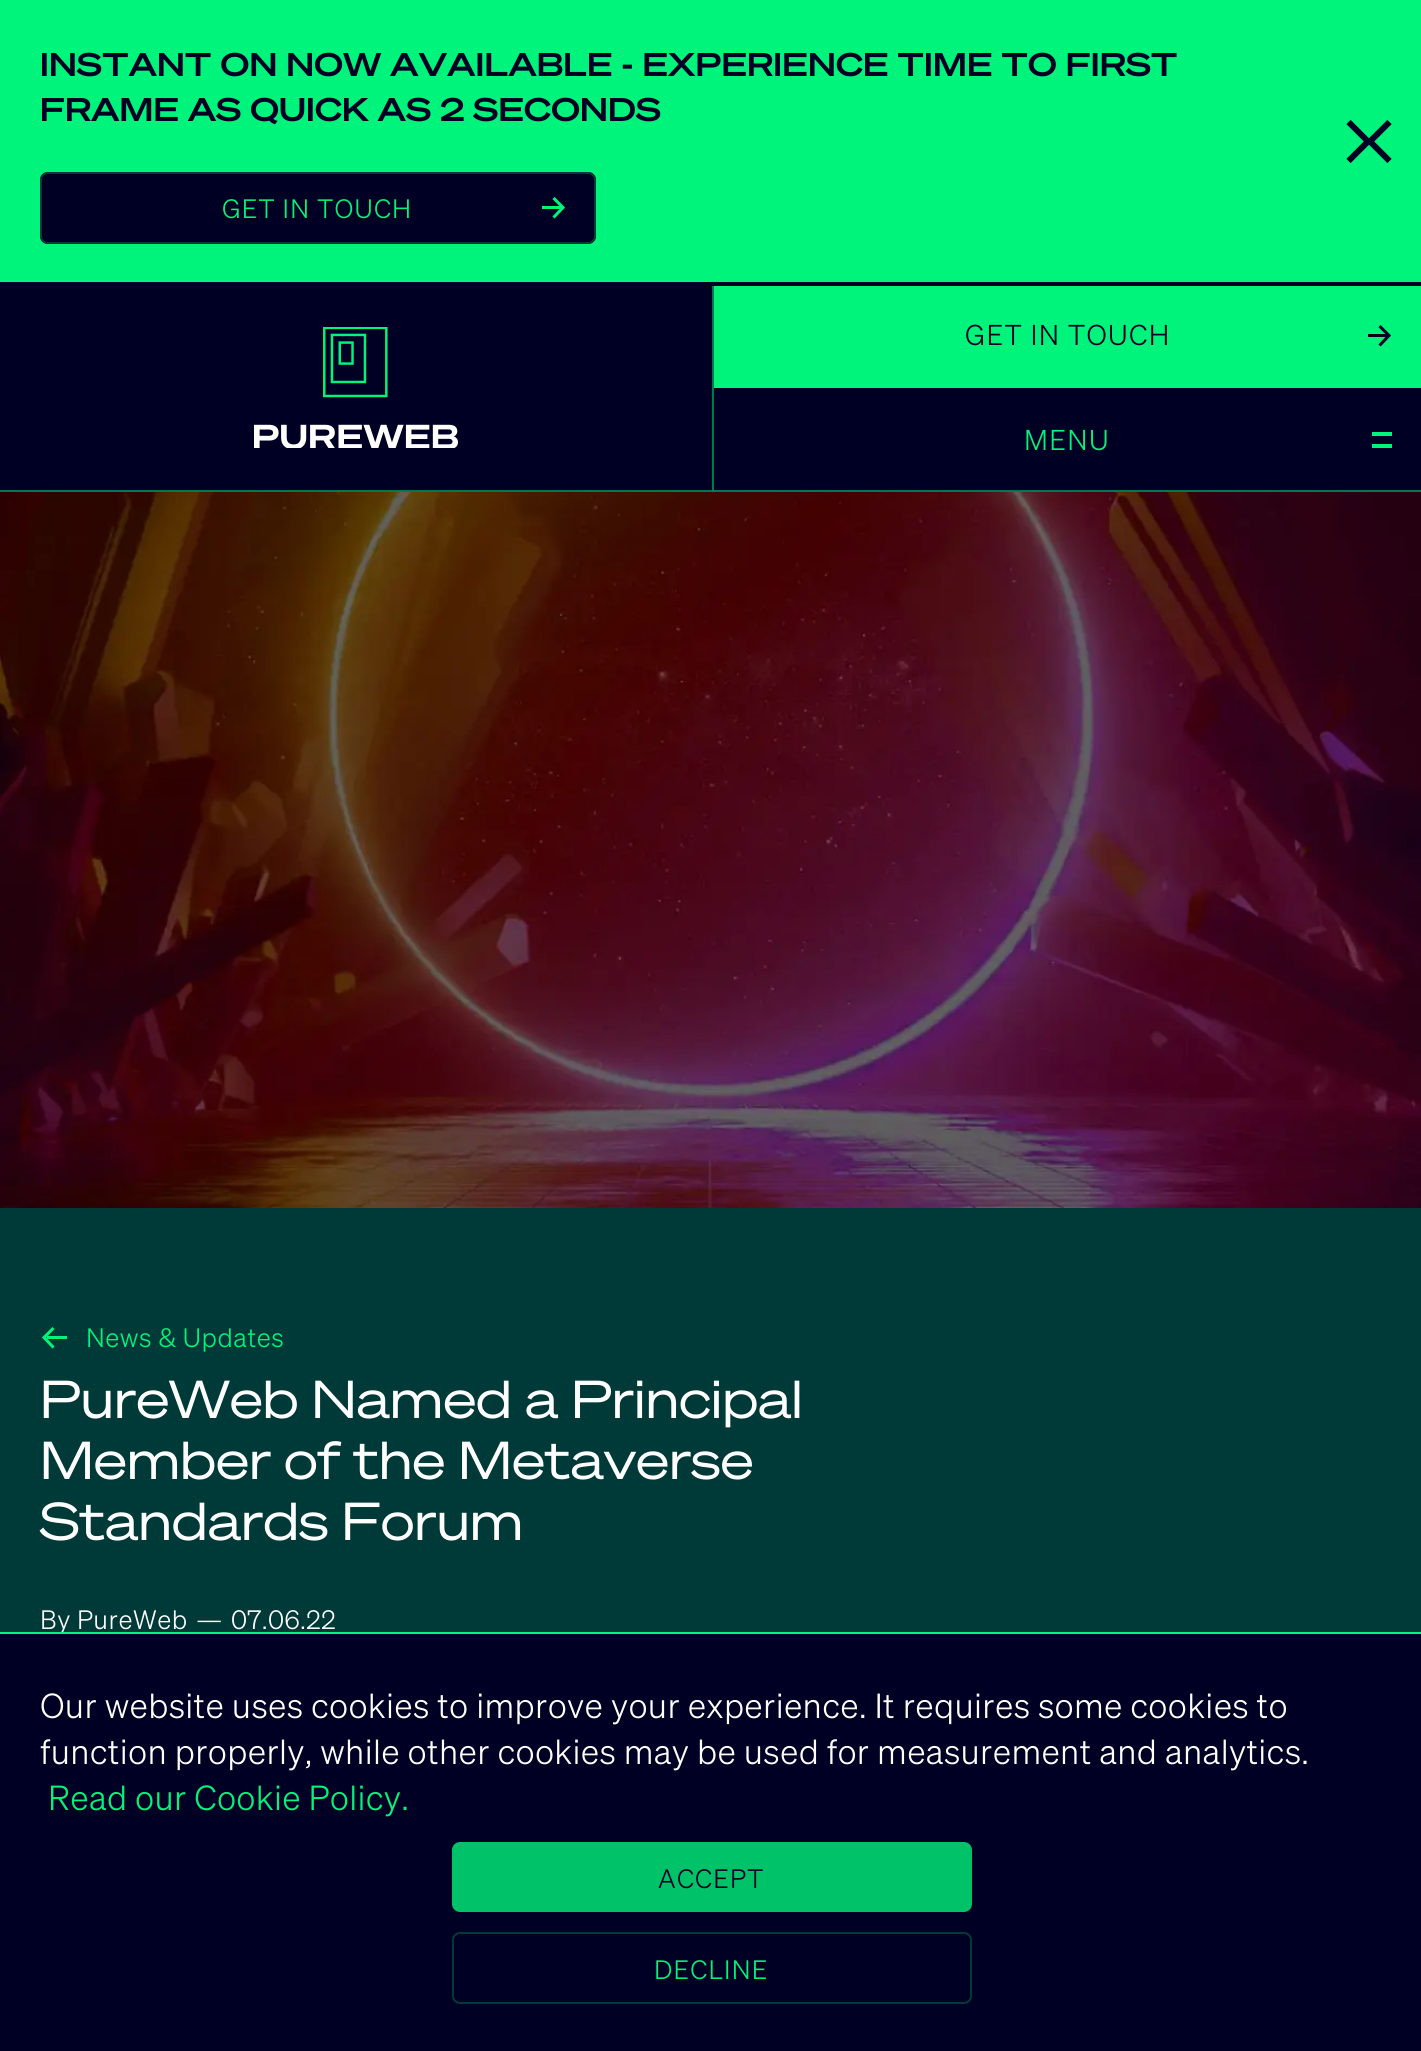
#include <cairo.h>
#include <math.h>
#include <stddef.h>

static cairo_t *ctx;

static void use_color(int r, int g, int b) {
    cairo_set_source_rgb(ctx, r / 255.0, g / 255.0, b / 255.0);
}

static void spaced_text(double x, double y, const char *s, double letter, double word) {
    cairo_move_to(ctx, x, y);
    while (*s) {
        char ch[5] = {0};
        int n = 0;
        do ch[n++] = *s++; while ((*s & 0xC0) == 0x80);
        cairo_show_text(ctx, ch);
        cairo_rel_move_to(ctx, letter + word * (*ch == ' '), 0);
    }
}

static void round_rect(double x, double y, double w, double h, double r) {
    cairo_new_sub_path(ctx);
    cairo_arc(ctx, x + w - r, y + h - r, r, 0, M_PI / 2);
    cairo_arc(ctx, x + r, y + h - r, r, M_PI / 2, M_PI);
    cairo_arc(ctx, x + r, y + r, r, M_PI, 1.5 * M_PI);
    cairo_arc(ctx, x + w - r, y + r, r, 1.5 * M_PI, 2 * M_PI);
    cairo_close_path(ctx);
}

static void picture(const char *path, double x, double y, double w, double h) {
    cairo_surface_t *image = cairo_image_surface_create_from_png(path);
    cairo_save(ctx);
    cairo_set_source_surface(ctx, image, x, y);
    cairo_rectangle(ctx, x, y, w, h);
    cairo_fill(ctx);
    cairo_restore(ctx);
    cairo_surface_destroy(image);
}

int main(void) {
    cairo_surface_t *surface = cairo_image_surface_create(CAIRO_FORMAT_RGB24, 1421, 2051);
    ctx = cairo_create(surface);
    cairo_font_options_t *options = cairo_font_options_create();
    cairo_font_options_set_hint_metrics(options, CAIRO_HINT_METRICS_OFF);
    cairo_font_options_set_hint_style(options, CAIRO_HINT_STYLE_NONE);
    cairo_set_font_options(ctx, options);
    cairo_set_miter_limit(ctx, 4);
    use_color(0, 58, 56);
    cairo_paint(ctx);
    use_color(0, 243, 122);
    cairo_rectangle(ctx, 0, 0, 1421, 282);
    cairo_fill(ctx);
    cairo_select_font_face(ctx, "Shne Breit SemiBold", CAIRO_FONT_SLANT_NORMAL, CAIRO_FONT_WEIGHT_NORMAL);
    cairo_set_font_size(ctx, 32);
    use_color(0, 0, 36);
    spaced_text(40, 76, "INSTANT ON NOW AVAILABLE - EXPERIENCE TIME TO FIRST", 0.32, 0);
    spaced_text(40, 121, "FRAME AS QUICK AS 2 SECONDS", 0.32, 0);
    round_rect(40, 172, 556, 72, 8);
    cairo_fill(ctx);
    cairo_new_path(ctx);
    cairo_move_to(ctx, 553.5, 198);
    cairo_line_to(ctx, 563, 207.5);
    cairo_line_to(ctx, 553.5, 217.5);
    use_color(0, 243, 122);
    cairo_set_line_width(ctx, 3);
    cairo_stroke(ctx);
    cairo_rectangle(ctx, 542, 206, 19, 3);
    cairo_fill(ctx);
    round_rect(41, 173, 554, 70, 7);
    use_color(0, 58, 56);
    cairo_set_line_width(ctx, 2);
    cairo_stroke(ctx);
    cairo_select_font_face(ctx, "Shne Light", CAIRO_FONT_SLANT_NORMAL, CAIRO_FONT_WEIGHT_NORMAL);
    cairo_set_font_size(ctx, 26);
    use_color(0, 243, 122);
    spaced_text(222, 218, "GET IN TOUCH", 1.25, 0);
    cairo_new_path(ctx);
    cairo_move_to(ctx, 1348.5, 122);
    cairo_line_to(ctx, 1368, 141.5);
    cairo_line_to(ctx, 1348.5, 161);
    cairo_move_to(ctx, 1389.5, 161);
    cairo_line_to(ctx, 1370, 141.5);
    cairo_line_to(ctx, 1389.5, 122);
    use_color(0, 0, 36);
    cairo_set_line_width(ctx, 6);
    cairo_stroke(ctx);
    cairo_rectangle(ctx, 0, 282, 1421, 208);
    cairo_fill(ctx);
    use_color(0, 121, 79);
    cairo_rectangle(ctx, 0, 490, 1421, 2);
    cairo_fill(ctx);
    picture("img1.png", 254, 327, 204, 121);
    cairo_rectangle(ctx, 712, 286, 2, 204);
    cairo_fill(ctx);
    use_color(0, 243, 122);
    cairo_rectangle(ctx, 714, 286, 707, 102);
    cairo_fill(ctx);
    cairo_set_font_size(ctx, 28);
    use_color(0, 0, 36);
    spaced_text(965, 345, "GET IN TOUCH", 1.4, 0);
    cairo_new_path(ctx);
    cairo_move_to(ctx, 1379.5, 326);
    cairo_line_to(ctx, 1389, 335.5);
    cairo_line_to(ctx, 1379.5, 345.5);
    cairo_set_line_width(ctx, 3);
    cairo_stroke(ctx);
    cairo_rectangle(ctx, 1368, 334, 19, 3);
    cairo_fill(ctx);
    use_color(0, 243, 122);
    spaced_text(1024, 450, "MENU", 1.4, 0);
    cairo_rectangle(ctx, 1372, 432, 20, 4);
    cairo_fill(ctx);
    cairo_rectangle(ctx, 1372, 444, 20, 4);
    cairo_fill(ctx);
    use_color(0, 0, 36);
    cairo_rectangle(ctx, 0, 1634, 1421, 417);
    cairo_fill(ctx);
    cairo_set_font_size(ctx, 26);
    use_color(255, 255, 255);
    spaced_text(40, 1629, "By PureWeb", 0.5, 0);
    use_color(0, 243, 122);
    cairo_rectangle(ctx, 0, 1632, 1421, 2);
    cairo_fill(ctx);
    cairo_set_font_size(ctx, 34);
    use_color(255, 255, 255);
    spaced_text(40, 1718, "Our website uses cookies to improve your experience. It requires some cookies to", 0.32, 0);
    spaced_text(40, 1764, "function properly, while other cookies may be used for measurement and analytics.", 0.32, 0);
    use_color(0, 243, 122);
    spaced_text(48, 1810, "Read our Cookie Policy.", 0.32, 0);
    use_color(0, 194, 105);
    round_rect(452, 1842, 520, 70, 8);
    cairo_fill(ctx);
    cairo_set_font_size(ctx, 26);
    use_color(0, 0, 36);
    spaced_text(658, 1888, "ACCEPT", 1.25, 0);
    round_rect(453, 1933, 518, 70, 7);
    use_color(0, 58, 56);
    cairo_set_line_width(ctx, 2);
    cairo_stroke(ctx);
    use_color(0, 243, 122);
    spaced_text(654, 1979, "DECLINE", 1.25, 0);
    picture("img2.png", 0, 492, 1421, 716);
    cairo_new_path(ctx);
    cairo_move_to(ctx, 53.5, 1347.5);
    cairo_line_to(ctx, 44, 1337.5);
    cairo_line_to(ctx, 53.5, 1328);
    cairo_set_line_width(ctx, 3);
    cairo_stroke(ctx);
    cairo_rectangle(ctx, 47, 1336, 20, 3);
    cairo_fill(ctx);
    spaced_text(86, 1347, "News & Updates", 0.5, 0);
    cairo_select_font_face(ctx, "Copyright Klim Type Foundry", CAIRO_FONT_SLANT_NORMAL, CAIRO_FONT_WEIGHT_NORMAL);
    cairo_set_font_size(ctx, 52);
    use_color(255, 255, 255);
    cairo_move_to(ctx, 40, 1418);
    cairo_show_text(ctx, "PureWeb Named a Principal");
    cairo_move_to(ctx, 40, 1479);
    cairo_show_text(ctx, "Member of the Metaverse");
    cairo_move_to(ctx, 40, 1540);
    cairo_show_text(ctx, "Standards Forum");
    cairo_select_font_face(ctx, "Shne Light", CAIRO_FONT_SLANT_NORMAL, CAIRO_FONT_WEIGHT_NORMAL);
    cairo_set_font_size(ctx, 26);
    spaced_text(196, 1629, "—", 0.5, 0);
    spaced_text(231, 1629, "07.06.22", 0.5, 0);
    cairo_surface_write_to_png(surface, "result.png");
    cairo_font_options_destroy(options);
    cairo_destroy(ctx);
    cairo_surface_destroy(surface);
    return 0;
}
